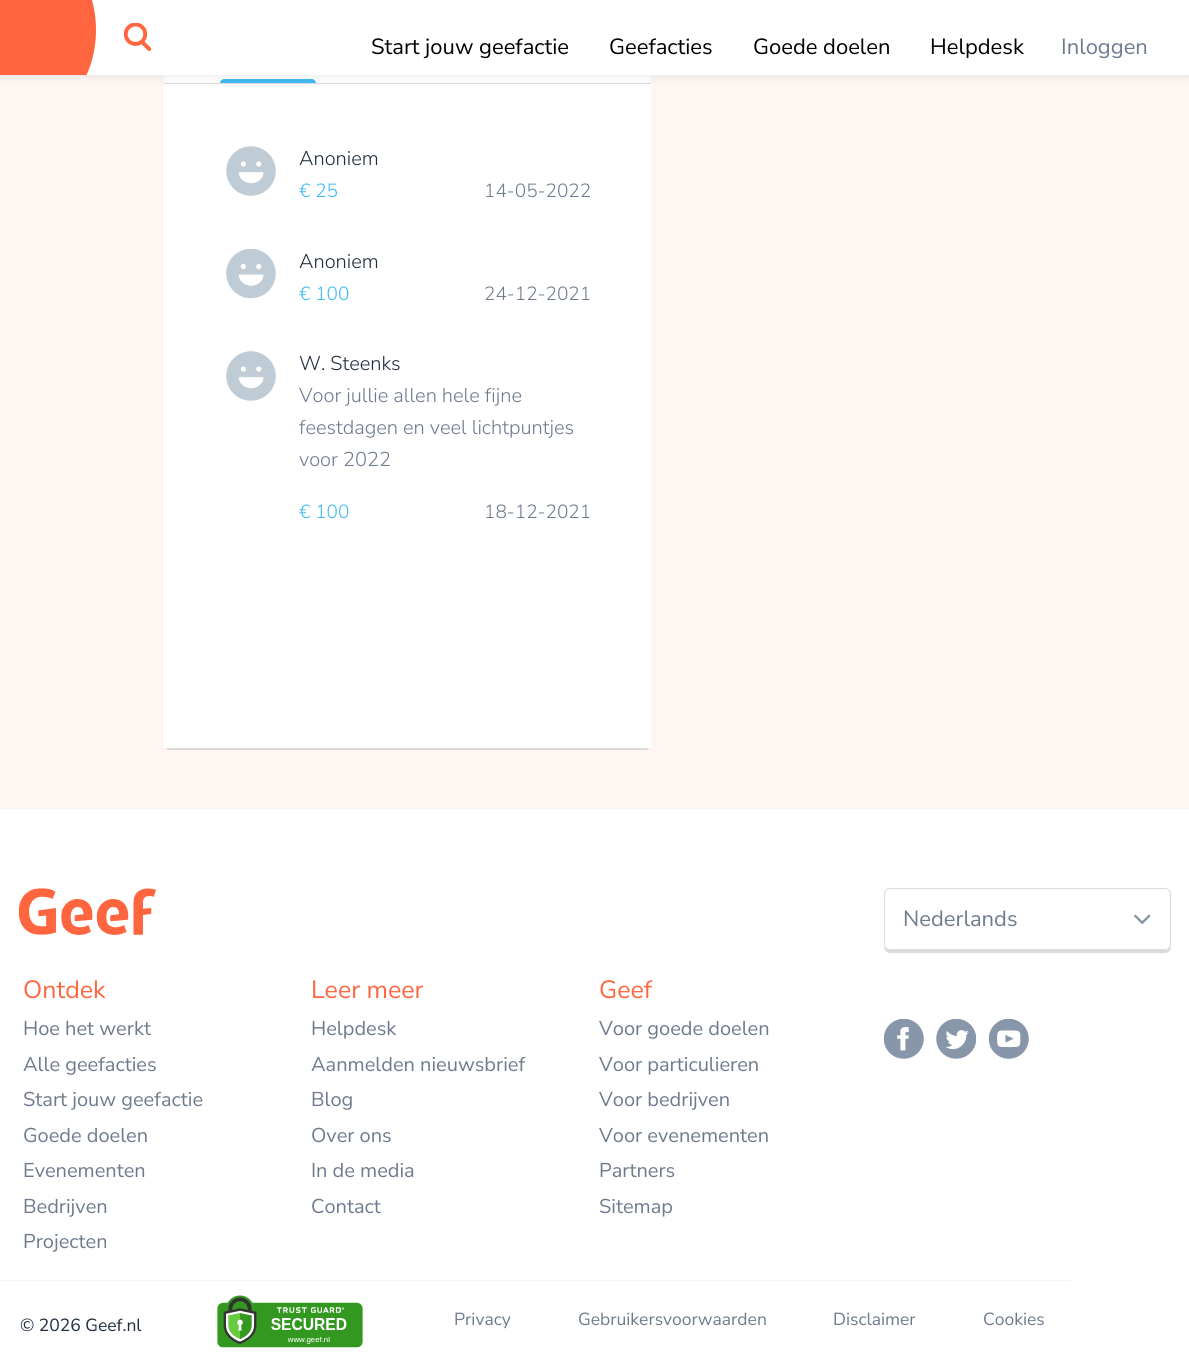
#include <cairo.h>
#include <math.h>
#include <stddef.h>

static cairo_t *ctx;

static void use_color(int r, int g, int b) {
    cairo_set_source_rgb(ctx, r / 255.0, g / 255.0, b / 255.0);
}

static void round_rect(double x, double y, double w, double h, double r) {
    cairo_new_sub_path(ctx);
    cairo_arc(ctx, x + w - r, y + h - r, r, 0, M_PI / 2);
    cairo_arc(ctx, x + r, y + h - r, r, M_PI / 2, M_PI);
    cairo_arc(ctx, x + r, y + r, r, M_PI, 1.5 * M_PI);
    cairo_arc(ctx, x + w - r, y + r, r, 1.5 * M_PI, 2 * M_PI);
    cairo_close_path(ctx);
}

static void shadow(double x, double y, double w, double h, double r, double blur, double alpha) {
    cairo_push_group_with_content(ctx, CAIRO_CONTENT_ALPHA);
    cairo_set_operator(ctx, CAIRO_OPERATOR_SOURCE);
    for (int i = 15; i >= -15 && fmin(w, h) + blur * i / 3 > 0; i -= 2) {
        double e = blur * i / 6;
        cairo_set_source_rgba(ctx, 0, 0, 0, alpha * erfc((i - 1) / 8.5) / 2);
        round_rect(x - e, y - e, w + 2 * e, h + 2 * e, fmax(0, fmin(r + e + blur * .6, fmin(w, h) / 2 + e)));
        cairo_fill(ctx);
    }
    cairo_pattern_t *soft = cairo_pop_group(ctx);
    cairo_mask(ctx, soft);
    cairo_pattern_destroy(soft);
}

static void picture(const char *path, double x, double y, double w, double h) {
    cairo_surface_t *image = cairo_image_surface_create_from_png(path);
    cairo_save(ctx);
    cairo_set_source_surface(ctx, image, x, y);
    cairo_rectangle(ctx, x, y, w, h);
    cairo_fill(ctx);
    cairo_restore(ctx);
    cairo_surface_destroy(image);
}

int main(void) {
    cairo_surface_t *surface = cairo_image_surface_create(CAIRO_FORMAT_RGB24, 1189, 1359);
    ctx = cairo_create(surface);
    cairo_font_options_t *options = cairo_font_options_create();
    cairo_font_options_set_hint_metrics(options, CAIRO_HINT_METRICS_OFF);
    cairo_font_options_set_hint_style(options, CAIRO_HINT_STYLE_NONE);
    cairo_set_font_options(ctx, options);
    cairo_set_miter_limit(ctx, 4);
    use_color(255, 255, 255);
    cairo_paint(ctx);
    use_color(254, 246, 243);
    cairo_rectangle(ctx, 0, 75, 1189, 733);
    cairo_fill(ctx);
    use_color(255, 255, 255);
    cairo_rectangle(ctx, 164, 75, 487, 8);
    cairo_fill(ctx);
    use_color(218, 218, 218);
    cairo_rectangle(ctx, 164, 83, 487, 1);
    cairo_fill(ctx);
    use_color(64, 186, 242);
    cairo_new_path(ctx);
    cairo_move_to(ctx, 224, 79);
    cairo_line_to(ctx, 312, 79);
    cairo_curve_to(ctx, 314, 79, 316, 81, 316, 83);
    cairo_line_to(ctx, 220, 83);
    cairo_curve_to(ctx, 220, 81, 222, 79, 224, 79);
    cairo_close_path(ctx);
    cairo_fill(ctx);
    use_color(218, 218, 218);
    cairo_new_path(ctx);
    cairo_move_to(ctx, 164, 743);
    cairo_curve_to(ctx, 164, 747, 166, 750, 170, 750);
    cairo_line_to(ctx, 645, 750);
    cairo_curve_to(ctx, 649, 750, 651, 747, 651, 743);
    cairo_curve_to(ctx, 650, 746, 648, 748, 645, 748);
    cairo_line_to(ctx, 170, 748);
    cairo_curve_to(ctx, 167, 748, 165, 746, 164, 743);
    cairo_close_path(ctx);
    cairo_fill(ctx);
    use_color(255, 255, 255);
    cairo_rectangle(ctx, 164, 84, 487, 664);
    cairo_fill(ctx);
    use_color(0, 0, 0);
    shadow(0, 0, 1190, 75, 0, 6, 0.1);
    use_color(255, 255, 255);
    cairo_rectangle(ctx, 86, 0, 1103, 75);
    cairo_fill(ctx);
    cairo_save(ctx);
    cairo_rectangle(ctx, 0, 0, 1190, 75);
    cairo_clip(ctx);
    use_color(255, 102, 63);
    cairo_new_path(ctx);
    cairo_move_to(ctx, 21, -62.5);
    cairo_curve_to(ctx, 62.5, -62.5, 96, -21, 96, 30);
    cairo_curve_to(ctx, 96, 81, 62.5, 122.5, 21, 122.5);
    cairo_curve_to(ctx, -20.5, 122.5, -54, 81, -54, 30);
    cairo_curve_to(ctx, -54, -21, -20.5, -62.5, 21, -62.5);
    cairo_close_path(ctx);
    cairo_fill(ctx);
    cairo_restore(ctx);
    picture("img1.png", 124, 23, 27, 29);
    cairo_select_font_face(ctx, "Nunito Sans", CAIRO_FONT_SLANT_NORMAL, CAIRO_FONT_WEIGHT_NORMAL);
    cairo_set_font_size(ctx, 22);
    use_color(0, 0, 0);
    cairo_move_to(ctx, 371, 54);
    cairo_show_text(ctx, "Start jouw geefactie");
    cairo_move_to(ctx, 609, 54);
    cairo_show_text(ctx, "Geefacties");
    cairo_move_to(ctx, 753, 54);
    cairo_show_text(ctx, "Goede doelen");
    cairo_move_to(ctx, 930, 54);
    cairo_show_text(ctx, "Helpdesk");
    use_color(110, 123, 142);
    cairo_move_to(ctx, 1061, 54);
    cairo_show_text(ctx, "Inloggen");
    picture("img2.png", 226, 146, 50, 50);
    cairo_select_font_face(ctx, "Nunito Sans Light", CAIRO_FONT_SLANT_NORMAL, CAIRO_FONT_WEIGHT_NORMAL);
    cairo_set_font_size(ctx, 20);
    use_color(32, 45, 62);
    cairo_move_to(ctx, 299, 165);
    cairo_show_text(ctx, "Anoniem");
    cairo_set_font_size(ctx, 19);
    use_color(64, 186, 242);
    cairo_move_to(ctx, 299, 197);
    cairo_show_text(ctx, "€ 25");
    use_color(110, 123, 142);
    cairo_move_to(ctx, 484, 197);
    cairo_show_text(ctx, "14-05-2022");
    picture("img3.png", 226, 249, 50, 50);
    cairo_set_font_size(ctx, 20);
    use_color(32, 45, 62);
    cairo_move_to(ctx, 299, 268);
    cairo_show_text(ctx, "Anoniem");
    cairo_set_font_size(ctx, 19);
    use_color(64, 186, 242);
    cairo_move_to(ctx, 299, 300);
    cairo_show_text(ctx, "€ 100");
    use_color(110, 123, 142);
    cairo_move_to(ctx, 484, 300);
    cairo_show_text(ctx, "24-12-2021");
    picture("img2.png", 226, 351, 50, 50);
    cairo_set_font_size(ctx, 20);
    use_color(32, 45, 62);
    cairo_move_to(ctx, 299, 370);
    cairo_show_text(ctx, "W. Steenks");
    use_color(110, 123, 142);
    cairo_move_to(ctx, 299, 402);
    cairo_show_text(ctx, "Voor jullie allen hele fijne");
    cairo_move_to(ctx, 299, 434);
    cairo_show_text(ctx, "feestdagen en veel lichtpuntjes");
    cairo_move_to(ctx, 299, 466);
    cairo_show_text(ctx, "voor 2022");
    cairo_set_font_size(ctx, 19);
    use_color(64, 186, 242);
    cairo_move_to(ctx, 299, 518);
    cairo_show_text(ctx, "€ 100");
    use_color(110, 123, 142);
    cairo_move_to(ctx, 484, 518);
    cairo_show_text(ctx, "18-12-2021");
    use_color(243, 244, 246);
    cairo_rectangle(ctx, 0, 808, 1189, 1);
    cairo_fill(ctx);
    picture("img4.png", 19, 888, 137, 47);
    use_color(218, 218, 218);
    cairo_new_path(ctx);
    cairo_move_to(ctx, 884, 946);
    cairo_curve_to(ctx, 884, 949, 886, 953, 890, 953);
    cairo_line_to(ctx, 1166, 953);
    cairo_curve_to(ctx, 1170, 952, 1171, 949, 1171, 946);
    cairo_curve_to(ctx, 1170, 948, 1168, 950, 1165, 950);
    cairo_line_to(ctx, 890, 950);
    cairo_curve_to(ctx, 887, 950, 885, 948, 884, 946);
    cairo_close_path(ctx);
    cairo_fill(ctx);
    use_color(255, 255, 255);
    round_rect(884, 888, 287, 62, 6);
    cairo_fill(ctx);
    picture("img5.png", 1134, 914, 17, 10);
    round_rect(884.5, 888.5, 286, 61, 5.5);
    use_color(218, 218, 218);
    cairo_set_line_width(ctx, 1);
    cairo_stroke(ctx);
    cairo_select_font_face(ctx, "Nunito Sans", CAIRO_FONT_SLANT_NORMAL, CAIRO_FONT_WEIGHT_NORMAL);
    cairo_set_font_size(ctx, 22);
    use_color(110, 123, 142);
    cairo_move_to(ctx, 903, 926);
    cairo_show_text(ctx, "Nederlands");
    cairo_set_font_size(ctx, 25);
    use_color(255, 102, 63);
    cairo_move_to(ctx, 23, 998);
    cairo_show_text(ctx, "Ontdek");
    cairo_set_font_size(ctx, 20);
    use_color(110, 123, 142);
    cairo_move_to(ctx, 23, 1035);
    cairo_show_text(ctx, "Hoe het werkt");
    cairo_move_to(ctx, 23, 1071);
    cairo_show_text(ctx, "Alle geefacties");
    cairo_move_to(ctx, 23, 1106);
    cairo_show_text(ctx, "Start jouw geefactie");
    cairo_move_to(ctx, 23, 1142);
    cairo_show_text(ctx, "Goede doelen");
    cairo_move_to(ctx, 23, 1177);
    cairo_show_text(ctx, "Evenementen");
    cairo_move_to(ctx, 23, 1213);
    cairo_show_text(ctx, "Bedrijven");
    cairo_move_to(ctx, 23, 1248);
    cairo_show_text(ctx, "Projecten");
    cairo_set_font_size(ctx, 25);
    use_color(255, 102, 63);
    cairo_move_to(ctx, 311, 998);
    cairo_show_text(ctx, "Leer meer");
    cairo_set_font_size(ctx, 20);
    use_color(110, 123, 142);
    cairo_move_to(ctx, 311, 1035);
    cairo_show_text(ctx, "Helpdesk");
    cairo_move_to(ctx, 311, 1071);
    cairo_show_text(ctx, "Aanmelden nieuwsbrief");
    cairo_move_to(ctx, 311, 1106);
    cairo_show_text(ctx, "Blog");
    cairo_move_to(ctx, 311, 1142);
    cairo_show_text(ctx, "Over ons");
    cairo_move_to(ctx, 311, 1177);
    cairo_show_text(ctx, "In de media");
    cairo_move_to(ctx, 311, 1213);
    cairo_show_text(ctx, "Contact");
    cairo_set_font_size(ctx, 25);
    use_color(255, 102, 63);
    cairo_move_to(ctx, 599, 998);
    cairo_show_text(ctx, "Geef");
    cairo_set_font_size(ctx, 20);
    use_color(110, 123, 142);
    cairo_move_to(ctx, 599, 1035);
    cairo_show_text(ctx, "Voor goede doelen");
    cairo_move_to(ctx, 599, 1071);
    cairo_show_text(ctx, "Voor particulieren");
    cairo_move_to(ctx, 599, 1106);
    cairo_show_text(ctx, "Voor bedrijven");
    cairo_move_to(ctx, 599, 1142);
    cairo_show_text(ctx, "Voor evenementen");
    cairo_move_to(ctx, 599, 1177);
    cairo_show_text(ctx, "Partners");
    cairo_move_to(ctx, 599, 1213);
    cairo_show_text(ctx, "Sitemap");
    picture("img6.png", 884, 1019, 40, 40);
    picture("img7.png", 936, 1019, 40, 40);
    picture("img8.png", 989, 1019, 40, 40);
    use_color(243, 244, 246);
    cairo_rectangle(ctx, 0, 1280, 1071, 1);
    cairo_fill(ctx);
    cairo_set_font_size(ctx, 17.5);
    use_color(32, 45, 62);
    cairo_move_to(ctx, 20, 1331);
    cairo_show_text(ctx, "© 2026 Geef.nl");
    picture("img9.png", 217, 1295, 146, 53);
    use_color(110, 123, 142);
    cairo_move_to(ctx, 454, 1325);
    cairo_show_text(ctx, "Privacy");
    cairo_move_to(ctx, 578, 1325);
    cairo_show_text(ctx, "Gebruikersvoorwaarden");
    cairo_move_to(ctx, 833, 1325);
    cairo_show_text(ctx, "Disclaimer");
    cairo_move_to(ctx, 983, 1325);
    cairo_show_text(ctx, "Cookies");
    cairo_surface_write_to_png(surface, "result.png");
    cairo_font_options_destroy(options);
    cairo_destroy(ctx);
    cairo_surface_destroy(surface);
    return 0;
}
